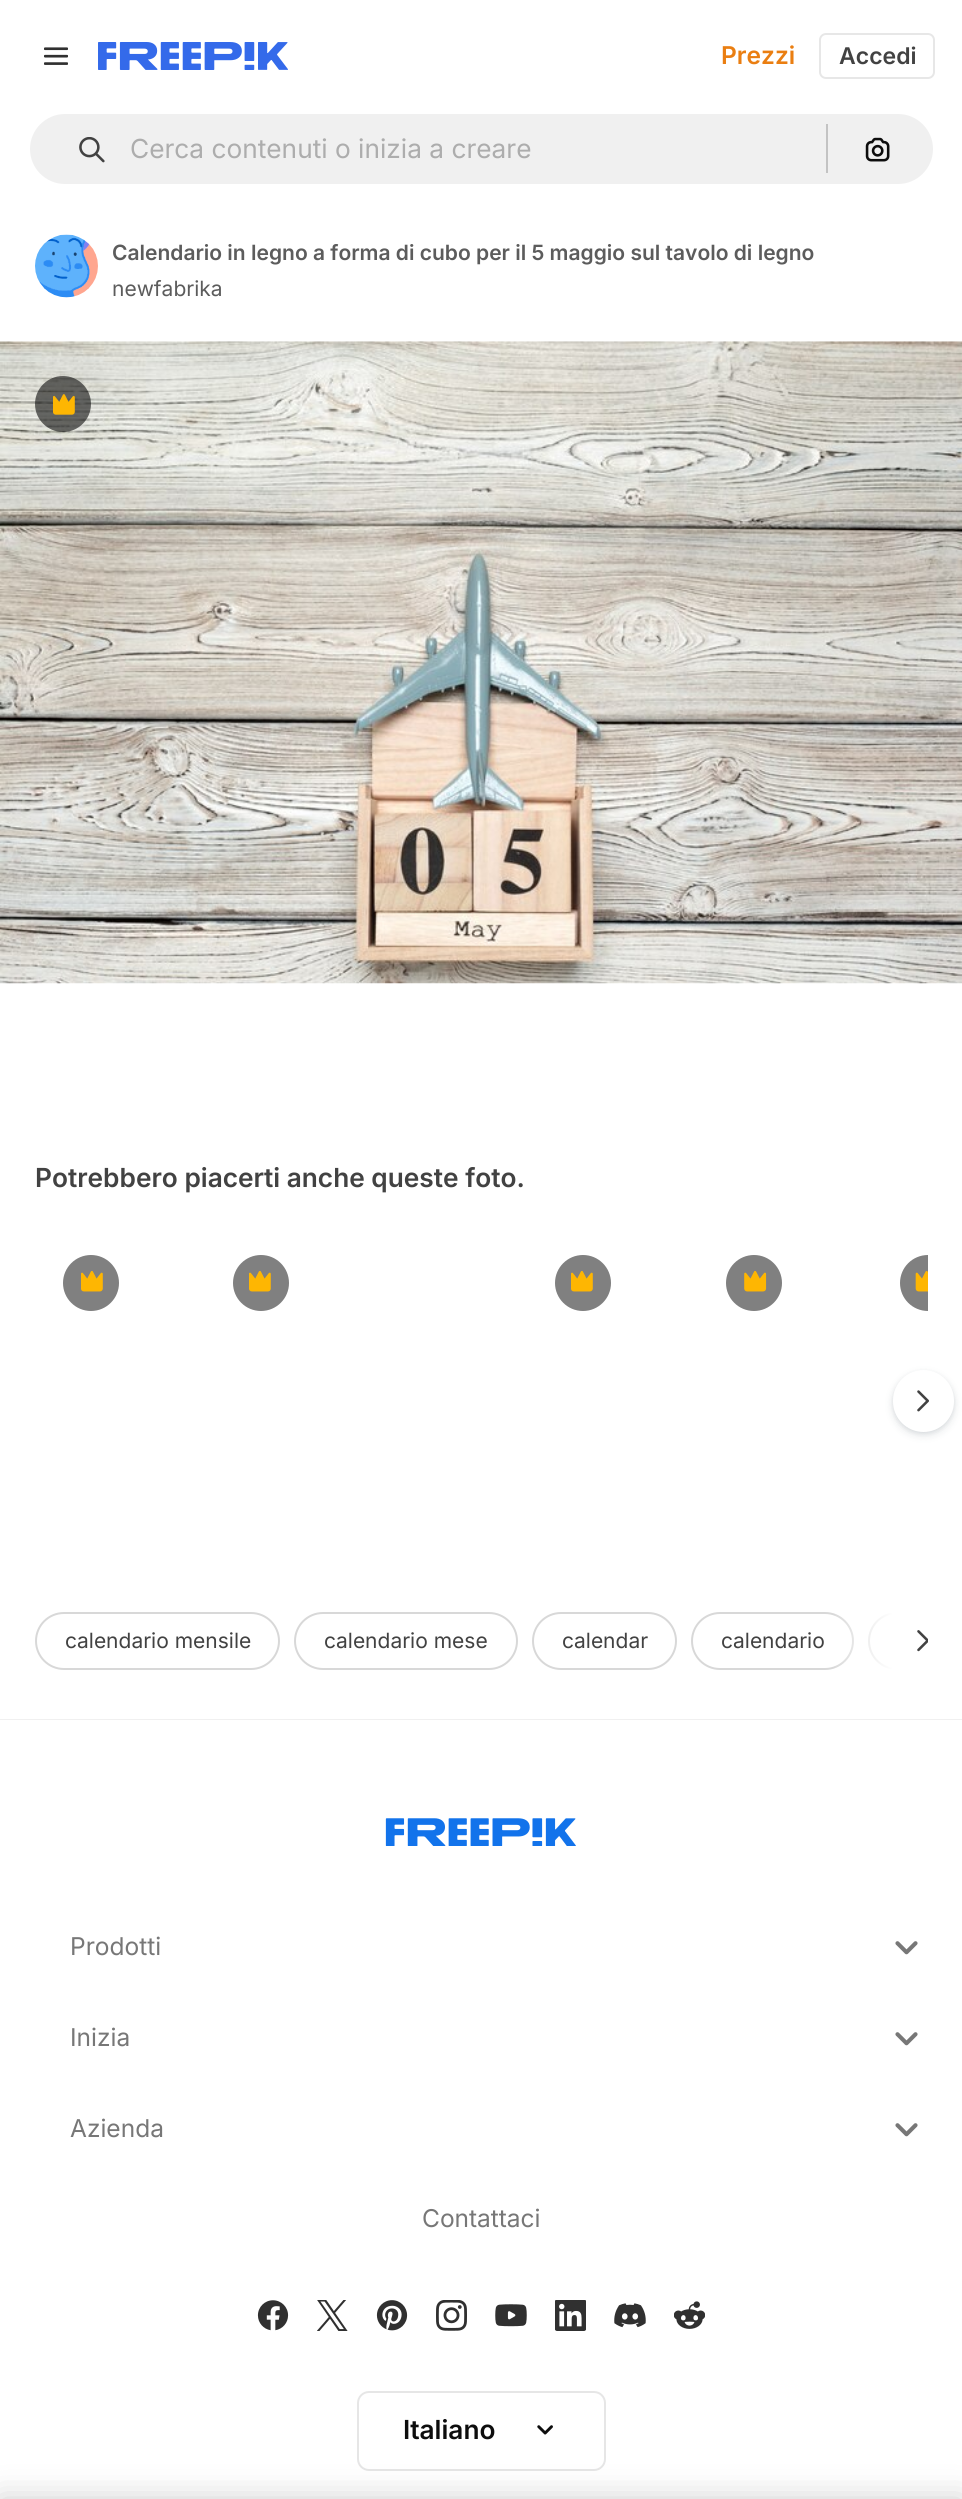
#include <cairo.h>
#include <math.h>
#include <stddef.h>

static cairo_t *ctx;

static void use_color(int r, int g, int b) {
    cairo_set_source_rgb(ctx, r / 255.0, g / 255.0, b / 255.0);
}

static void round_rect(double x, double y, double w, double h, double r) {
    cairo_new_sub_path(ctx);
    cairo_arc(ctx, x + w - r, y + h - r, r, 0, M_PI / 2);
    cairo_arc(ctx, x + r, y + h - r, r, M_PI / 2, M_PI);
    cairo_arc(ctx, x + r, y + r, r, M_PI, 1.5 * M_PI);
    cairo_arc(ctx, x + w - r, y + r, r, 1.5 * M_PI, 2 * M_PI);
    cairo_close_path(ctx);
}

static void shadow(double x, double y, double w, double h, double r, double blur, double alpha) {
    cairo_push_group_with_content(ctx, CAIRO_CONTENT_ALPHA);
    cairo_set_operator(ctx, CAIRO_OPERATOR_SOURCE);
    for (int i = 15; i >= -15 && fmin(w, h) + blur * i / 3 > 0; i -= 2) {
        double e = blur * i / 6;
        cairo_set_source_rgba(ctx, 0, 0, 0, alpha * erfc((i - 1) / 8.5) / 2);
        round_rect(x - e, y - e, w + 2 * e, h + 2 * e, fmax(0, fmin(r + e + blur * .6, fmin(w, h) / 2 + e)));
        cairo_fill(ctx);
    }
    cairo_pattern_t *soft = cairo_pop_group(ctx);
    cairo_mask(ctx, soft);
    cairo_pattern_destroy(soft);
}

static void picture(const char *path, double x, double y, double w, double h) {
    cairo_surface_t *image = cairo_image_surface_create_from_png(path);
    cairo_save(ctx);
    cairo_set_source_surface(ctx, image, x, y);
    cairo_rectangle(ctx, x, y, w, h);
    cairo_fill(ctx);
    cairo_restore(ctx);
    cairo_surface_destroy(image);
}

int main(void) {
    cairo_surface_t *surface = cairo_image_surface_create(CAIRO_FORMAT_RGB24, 962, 2499);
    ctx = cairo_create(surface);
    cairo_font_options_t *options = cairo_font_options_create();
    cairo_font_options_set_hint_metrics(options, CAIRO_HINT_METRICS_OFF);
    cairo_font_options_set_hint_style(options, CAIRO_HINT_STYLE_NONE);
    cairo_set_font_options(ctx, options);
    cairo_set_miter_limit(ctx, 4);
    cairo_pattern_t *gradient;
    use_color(255, 255, 255);
    cairo_paint(ctx);
    picture("img1.png", 44, 47, 24, 18);
    picture("img2.png", 98, 42, 190, 28);
    cairo_select_font_face(ctx, "Inter SemiBold", CAIRO_FONT_SLANT_NORMAL, CAIRO_FONT_WEIGHT_NORMAL);
    cairo_set_font_size(ctx, 24.5);
    use_color(234, 126, 17);
    cairo_move_to(ctx, 721, 64);
    cairo_show_text(ctx, "Prezzi");
    round_rect(820, 34, 114, 44, 6);
    use_color(231, 231, 231);
    cairo_stroke(ctx);
    cairo_set_font_size(ctx, 23);
    use_color(66, 66, 66);
    cairo_move_to(ctx, 839, 64);
    cairo_show_text(ctx, "Accedi");
    use_color(240, 240, 240);
    round_rect(29, 113, 905, 72, 36);
    cairo_fill_preserve(ctx);
    use_color(255, 255, 255);
    cairo_stroke(ctx);
    picture("img3.png", 79, 137, 26, 26);
    cairo_select_font_face(ctx, "Inter", CAIRO_FONT_SLANT_NORMAL, CAIRO_FONT_WEIGHT_NORMAL);
    cairo_set_font_size(ctx, 26.25);
    use_color(173, 173, 173);
    cairo_move_to(ctx, 130, 158);
    cairo_show_text(ctx, "Cerca contenuti o inizia a creare");
    use_color(195, 195, 195);
    cairo_rectangle(ctx, 826, 124, 2, 49);
    cairo_fill(ctx);
    picture("img4.png", 865, 137, 25, 25);
    picture("img5.png", 35, 234, 63, 64);
    cairo_select_font_face(ctx, "Inter SemiBold", CAIRO_FONT_SLANT_NORMAL, CAIRO_FONT_WEIGHT_NORMAL);
    cairo_set_font_size(ctx, 21);
    use_color(92, 92, 92);
    cairo_move_to(ctx, 112, 260);
    cairo_show_text(ctx, "Calendario in legno a forma di cubo per il 5 maggio sul tavolo di legno");
    cairo_select_font_face(ctx, "Inter", CAIRO_FONT_SLANT_NORMAL, CAIRO_FONT_WEIGHT_NORMAL);
    cairo_move_to(ctx, 112, 296);
    cairo_show_text(ctx, "newfabrika");
    picture("img6.png", 0, 341, 962, 643);
    cairo_set_source_rgba(ctx, 0.051, 0.051, 0.051, 0.6);
    cairo_arc(ctx, 63, 404, 28, 0, 2 * M_PI);
    cairo_fill(ctx);
    picture("img7.png", 53, 394, 22, 21);
    cairo_select_font_face(ctx, "Inter SemiBold", CAIRO_FONT_SLANT_NORMAL, CAIRO_FONT_WEIGHT_NORMAL);
    cairo_set_font_size(ctx, 26.25);
    use_color(66, 66, 66);
    cairo_move_to(ctx, 35, 1187);
    cairo_show_text(ctx, "Potrebbero piacerti anche queste foto.");
    use_color(128, 128, 128);
    cairo_new_path(ctx);
    cairo_arc(ctx, 91, 1283, 28, 0, 2 * M_PI);
    cairo_fill(ctx);
    picture("img8.png", 81, 1271, 22, 21);
    cairo_arc(ctx, 261, 1283, 28, 0, 2 * M_PI);
    cairo_fill(ctx);
    picture("img8.png", 249, 1271, 22, 21);
    cairo_arc(ctx, 583, 1283, 28, 0, 2 * M_PI);
    cairo_fill(ctx);
    picture("img8.png", 571, 1271, 22, 21);
    cairo_arc(ctx, 754, 1283, 28, 0, 2 * M_PI);
    cairo_fill(ctx);
    picture("img9.png", 744, 1271, 23, 21);
    cairo_new_path(ctx);
    cairo_move_to(ctx, 928, 1255);
    cairo_line_to(ctx, 928, 1311);
    cairo_curve_to(ctx, 912.5, 1311, 900, 1298.5, 900, 1283);
    cairo_curve_to(ctx, 900, 1267.5, 912.5, 1255, 928, 1255);
    cairo_close_path(ctx);
    cairo_fill(ctx);
    picture("img10.png", 915, 1271, 13, 21);
    use_color(55, 73, 87);
    shadow(893, 1374, 61, 61, 30.5, 4.5, 0.15);
    shadow(893, 1372, 61, 61, 30.5, 2, 0.1);
    use_color(255, 255, 255);
    round_rect(893, 1370, 61, 62, 30.5);
    cairo_fill(ctx);
    picture("img11.png", 917, 1390, 12, 22);
    round_rect(36, 1613, 243, 56, 28);
    use_color(216, 216, 216);
    cairo_stroke(ctx);
    cairo_select_font_face(ctx, "Inter", CAIRO_FONT_SLANT_NORMAL, CAIRO_FONT_WEIGHT_NORMAL);
    cairo_set_font_size(ctx, 21);
    use_color(66, 66, 66);
    cairo_move_to(ctx, 65, 1648);
    cairo_show_text(ctx, "calendario mensile");
    round_rect(295, 1613, 222, 56, 28);
    use_color(216, 216, 216);
    cairo_stroke(ctx);
    use_color(66, 66, 66);
    cairo_move_to(ctx, 324, 1648);
    cairo_show_text(ctx, "calendario mese");
    round_rect(533, 1613, 143, 56, 28);
    use_color(216, 216, 216);
    cairo_stroke(ctx);
    use_color(66, 66, 66);
    cairo_move_to(ctx, 562, 1648);
    cairo_show_text(ctx, "calendar");
    round_rect(692, 1613, 161, 56, 28);
    use_color(216, 216, 216);
    cairo_stroke(ctx);
    use_color(66, 66, 66);
    cairo_move_to(ctx, 721, 1648);
    cairo_show_text(ctx, "calendario");
    cairo_save(ctx);
    cairo_rectangle(ctx, 35, 1612, 893, 58);
    cairo_clip(ctx);
    round_rect(869, 1613, 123, 56, 28);
    use_color(216, 216, 216);
    cairo_stroke(ctx);
    cairo_restore(ctx);
    use_color(255, 255, 255);
    cairo_rectangle(ctx, 893, 1612, 35, 58);
    cairo_fill(ctx);
    gradient = cairo_pattern_create_linear(893, 1641, 831, 1641);
    cairo_pattern_add_color_stop_rgba(gradient, 0, 1, 1, 1, 1);
    cairo_pattern_add_color_stop_rgba(gradient, 1, 1, 1, 1, 0);
    cairo_set_source(ctx, gradient);
    cairo_pattern_destroy(gradient);
    cairo_rectangle(ctx, 835, 1612, 58, 58);
    cairo_fill(ctx);
    picture("img12.png", 917, 1630, 11, 22);
    use_color(240, 240, 240);
    cairo_rectangle(ctx, 0, 1719, 962, 1);
    cairo_fill(ctx);
    picture("img13.png", 385, 1818, 191, 28);
    cairo_set_font_size(ctx, 24.5);
    use_color(119, 119, 119);
    cairo_move_to(ctx, 70, 1955);
    cairo_show_text(ctx, "Prodotti");
    picture("img14.png", 895, 1941, 23, 14);
    cairo_move_to(ctx, 70, 2046);
    cairo_show_text(ctx, "Inizia");
    picture("img14.png", 895, 2032, 23, 14);
    cairo_move_to(ctx, 70, 2137);
    cairo_show_text(ctx, "Azienda");
    picture("img14.png", 895, 2123, 23, 14);
    cairo_move_to(ctx, 422, 2227);
    cairo_show_text(ctx, "Contattaci");
    picture("img15.png", 257, 2300, 32, 31);
    picture("img16.png", 317, 2300, 31, 31);
    picture("img17.png", 376, 2300, 32, 31);
    picture("img18.png", 436, 2300, 31, 31);
    picture("img19.png", 495, 2304, 32, 23);
    picture("img20.png", 555, 2300, 31, 31);
    picture("img21.png", 614, 2303, 32, 25);
    picture("img22.png", 674, 2301, 31, 28);
    round_rect(358, 2392, 247, 78, 11);
    use_color(230, 230, 230);
    cairo_stroke(ctx);
    cairo_select_font_face(ctx, "Inter SemiBold", CAIRO_FONT_SLANT_NORMAL, CAIRO_FONT_WEIGHT_NORMAL);
    cairo_set_font_size(ctx, 26.25);
    use_color(13, 13, 13);
    cairo_move_to(ctx, 403, 2439);
    cairo_show_text(ctx, "Italiano");
    picture("img23.png", 537, 2425, 16, 10);
    use_color(0, 0, 0);
    shadow(0, 2499, 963, 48, 0, 16, 0.2);
    cairo_surface_write_to_png(surface, "result.png");
    cairo_font_options_destroy(options);
    cairo_destroy(ctx);
    cairo_surface_destroy(surface);
    return 0;
}
